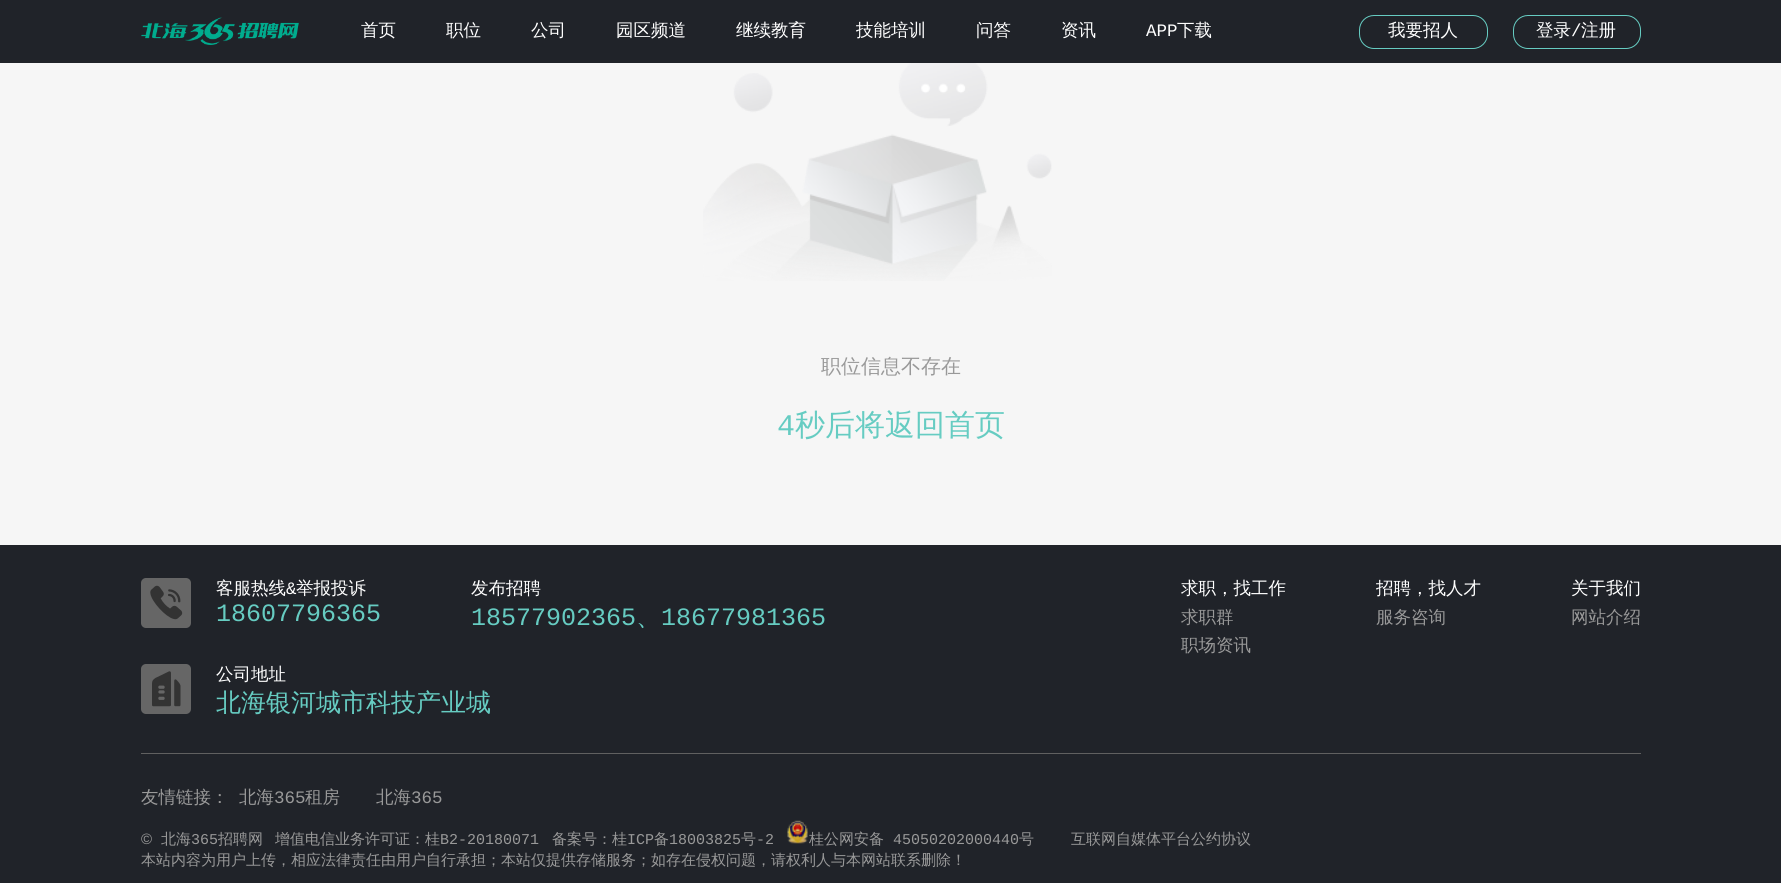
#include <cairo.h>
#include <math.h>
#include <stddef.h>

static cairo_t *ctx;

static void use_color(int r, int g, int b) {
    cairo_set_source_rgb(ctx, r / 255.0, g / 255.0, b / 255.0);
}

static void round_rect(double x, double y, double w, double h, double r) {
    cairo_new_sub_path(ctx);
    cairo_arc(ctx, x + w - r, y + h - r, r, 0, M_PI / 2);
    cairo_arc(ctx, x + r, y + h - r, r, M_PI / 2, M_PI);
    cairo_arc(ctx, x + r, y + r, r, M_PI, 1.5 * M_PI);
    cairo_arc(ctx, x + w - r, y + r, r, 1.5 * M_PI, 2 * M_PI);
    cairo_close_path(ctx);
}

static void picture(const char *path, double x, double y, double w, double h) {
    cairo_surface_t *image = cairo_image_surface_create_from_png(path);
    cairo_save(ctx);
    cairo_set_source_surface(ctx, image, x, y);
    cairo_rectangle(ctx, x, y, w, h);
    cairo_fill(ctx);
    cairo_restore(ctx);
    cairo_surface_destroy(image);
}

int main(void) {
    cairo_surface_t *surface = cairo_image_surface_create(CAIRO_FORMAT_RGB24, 1781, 883);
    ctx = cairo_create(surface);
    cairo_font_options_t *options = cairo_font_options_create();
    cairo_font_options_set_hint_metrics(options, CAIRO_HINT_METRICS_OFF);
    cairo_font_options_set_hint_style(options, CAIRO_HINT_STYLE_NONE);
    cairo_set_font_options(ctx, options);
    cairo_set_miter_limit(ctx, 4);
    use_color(246, 246, 246);
    cairo_paint(ctx);
    use_color(32, 35, 41);
    cairo_rectangle(ctx, 0, 0, 1781, 63);
    cairo_fill(ctx);
    picture("img1.png", 141, 17, 158, 28);
    cairo_select_font_face(ctx, "WenQuanYi Zen Hei Medium", CAIRO_FONT_SLANT_NORMAL, CAIRO_FONT_WEIGHT_NORMAL);
    cairo_set_font_size(ctx, 17.5);
    use_color(255, 255, 255);
    cairo_move_to(ctx, 361, 36);
    cairo_show_text(ctx, "首页");
    cairo_move_to(ctx, 446, 36);
    cairo_show_text(ctx, "职位");
    cairo_move_to(ctx, 531, 36);
    cairo_show_text(ctx, "公司");
    cairo_move_to(ctx, 616, 36);
    cairo_show_text(ctx, "园区频道");
    cairo_move_to(ctx, 736, 36);
    cairo_show_text(ctx, "继续教育");
    cairo_move_to(ctx, 856, 36);
    cairo_show_text(ctx, "技能培训");
    cairo_move_to(ctx, 976, 36);
    cairo_show_text(ctx, "问答");
    cairo_move_to(ctx, 1061, 36);
    cairo_show_text(ctx, "资讯");
    cairo_select_font_face(ctx, "Liberation Mono", CAIRO_FONT_SLANT_NORMAL, CAIRO_FONT_WEIGHT_NORMAL);
    cairo_move_to(ctx, 1146, 36);
    cairo_show_text(ctx, "APP");
    cairo_select_font_face(ctx, "WenQuanYi Zen Hei Medium", CAIRO_FONT_SLANT_NORMAL, CAIRO_FONT_WEIGHT_NORMAL);
    cairo_move_to(ctx, 1177, 36);
    cairo_show_text(ctx, "下载");
    round_rect(1359.5, 15.5, 128, 33, 14.5);
    use_color(102, 204, 194);
    cairo_set_line_width(ctx, 1);
    cairo_stroke(ctx);
    use_color(255, 255, 255);
    cairo_move_to(ctx, 1388, 36);
    cairo_show_text(ctx, "我要招人");
    round_rect(1513.5, 15.5, 127, 33, 14.5);
    use_color(102, 204, 194);
    cairo_stroke(ctx);
    use_color(255, 255, 255);
    cairo_move_to(ctx, 1536, 36);
    cairo_show_text(ctx, "登录");
    cairo_select_font_face(ctx, "Liberation Mono", CAIRO_FONT_SLANT_NORMAL, CAIRO_FONT_WEIGHT_NORMAL);
    cairo_move_to(ctx, 1571, 36);
    cairo_show_text(ctx, "/");
    cairo_select_font_face(ctx, "WenQuanYi Zen Hei Medium", CAIRO_FONT_SLANT_NORMAL, CAIRO_FONT_WEIGHT_NORMAL);
    cairo_move_to(ctx, 1581, 36);
    cairo_show_text(ctx, "注册");
    picture("img2.png", 703, 63, 349, 218);
    cairo_set_font_size(ctx, 20);
    use_color(153, 153, 153);
    cairo_move_to(ctx, 821, 373);
    cairo_show_text(ctx, "职位信息不存在");
    cairo_select_font_face(ctx, "Liberation Mono", CAIRO_FONT_SLANT_NORMAL, CAIRO_FONT_WEIGHT_NORMAL);
    cairo_set_font_size(ctx, 30);
    use_color(102, 204, 194);
    cairo_move_to(ctx, 777, 435);
    cairo_show_text(ctx, "4");
    cairo_select_font_face(ctx, "WenQuanYi Zen Hei Medium", CAIRO_FONT_SLANT_NORMAL, CAIRO_FONT_WEIGHT_NORMAL);
    cairo_move_to(ctx, 795, 435);
    cairo_show_text(ctx, "秒后将返回首页");
    use_color(32, 35, 41);
    cairo_rectangle(ctx, 0, 545, 1781, 338);
    cairo_fill(ctx);
    use_color(102, 102, 102);
    round_rect(141, 578, 50, 50, 5);
    cairo_fill(ctx);
    picture("img3.png", 150, 585, 33, 35);
    cairo_set_font_size(ctx, 17.5);
    use_color(255, 255, 255);
    cairo_move_to(ctx, 216, 594);
    cairo_show_text(ctx, "客服热线");
    cairo_select_font_face(ctx, "Liberation Mono", CAIRO_FONT_SLANT_NORMAL, CAIRO_FONT_WEIGHT_NORMAL);
    cairo_move_to(ctx, 286, 594);
    cairo_show_text(ctx, "&");
    cairo_select_font_face(ctx, "WenQuanYi Zen Hei Medium", CAIRO_FONT_SLANT_NORMAL, CAIRO_FONT_WEIGHT_NORMAL);
    cairo_move_to(ctx, 296, 594);
    cairo_show_text(ctx, "举报投诉");
    cairo_select_font_face(ctx, "Liberation Mono", CAIRO_FONT_SLANT_NORMAL, CAIRO_FONT_WEIGHT_NORMAL);
    cairo_set_font_size(ctx, 25);
    use_color(102, 204, 194);
    cairo_move_to(ctx, 216, 621);
    cairo_show_text(ctx, "18607796365");
    cairo_select_font_face(ctx, "WenQuanYi Zen Hei Medium", CAIRO_FONT_SLANT_NORMAL, CAIRO_FONT_WEIGHT_NORMAL);
    cairo_set_font_size(ctx, 17.5);
    use_color(255, 255, 255);
    cairo_move_to(ctx, 471, 594);
    cairo_show_text(ctx, "发布招聘");
    cairo_select_font_face(ctx, "Liberation Mono", CAIRO_FONT_SLANT_NORMAL, CAIRO_FONT_WEIGHT_NORMAL);
    cairo_set_font_size(ctx, 25);
    use_color(102, 204, 194);
    cairo_move_to(ctx, 471, 625);
    cairo_show_text(ctx, "18577902365");
    cairo_select_font_face(ctx, "WenQuanYi Zen Hei Medium", CAIRO_FONT_SLANT_NORMAL, CAIRO_FONT_WEIGHT_NORMAL);
    cairo_move_to(ctx, 636, 625);
    cairo_show_text(ctx, "、");
    cairo_select_font_face(ctx, "Liberation Mono", CAIRO_FONT_SLANT_NORMAL, CAIRO_FONT_WEIGHT_NORMAL);
    cairo_move_to(ctx, 661, 625);
    cairo_show_text(ctx, "18677981365");
    use_color(102, 102, 102);
    round_rect(141, 664, 50, 50, 5);
    cairo_fill(ctx);
    picture("img4.png", 152, 671, 29, 36);
    cairo_select_font_face(ctx, "WenQuanYi Zen Hei Medium", CAIRO_FONT_SLANT_NORMAL, CAIRO_FONT_WEIGHT_NORMAL);
    cairo_set_font_size(ctx, 17.5);
    use_color(255, 255, 255);
    cairo_move_to(ctx, 216, 680);
    cairo_show_text(ctx, "公司地址");
    cairo_set_font_size(ctx, 25);
    use_color(102, 204, 194);
    cairo_move_to(ctx, 216, 711);
    cairo_show_text(ctx, "北海银河城市科技产业城");
    cairo_set_font_size(ctx, 17.5);
    use_color(255, 255, 255);
    cairo_move_to(ctx, 1181, 594);
    cairo_show_text(ctx, "求职，找工作");
    use_color(153, 153, 153);
    cairo_move_to(ctx, 1181, 623);
    cairo_show_text(ctx, "求职群");
    cairo_move_to(ctx, 1181, 651);
    cairo_show_text(ctx, "职场资讯");
    use_color(255, 255, 255);
    cairo_move_to(ctx, 1376, 594);
    cairo_show_text(ctx, "招聘，找人才");
    use_color(153, 153, 153);
    cairo_move_to(ctx, 1376, 623);
    cairo_show_text(ctx, "服务咨询");
    use_color(255, 255, 255);
    cairo_move_to(ctx, 1571, 594);
    cairo_show_text(ctx, "关于我们");
    use_color(153, 153, 153);
    cairo_move_to(ctx, 1571, 623);
    cairo_show_text(ctx, "网站介绍");
    use_color(96, 96, 96);
    cairo_rectangle(ctx, 141, 753, 1500, 1);
    cairo_fill(ctx);
    use_color(153, 153, 153);
    cairo_move_to(ctx, 141, 803);
    cairo_show_text(ctx, "友情链接：");
    cairo_move_to(ctx, 239, 803);
    cairo_show_text(ctx, "北海");
    cairo_select_font_face(ctx, "Liberation Mono", CAIRO_FONT_SLANT_NORMAL, CAIRO_FONT_WEIGHT_NORMAL);
    cairo_move_to(ctx, 274, 803);
    cairo_show_text(ctx, "365");
    cairo_select_font_face(ctx, "WenQuanYi Zen Hei Medium", CAIRO_FONT_SLANT_NORMAL, CAIRO_FONT_WEIGHT_NORMAL);
    cairo_move_to(ctx, 305, 803);
    cairo_show_text(ctx, "租房");
    cairo_move_to(ctx, 376, 803);
    cairo_show_text(ctx, "北海");
    cairo_select_font_face(ctx, "Liberation Mono", CAIRO_FONT_SLANT_NORMAL, CAIRO_FONT_WEIGHT_NORMAL);
    cairo_move_to(ctx, 411, 803);
    cairo_show_text(ctx, "365");
    cairo_select_font_face(ctx, "Liberation Sans", CAIRO_FONT_SLANT_NORMAL, CAIRO_FONT_WEIGHT_NORMAL);
    cairo_set_font_size(ctx, 15);
    cairo_move_to(ctx, 141, 844);
    cairo_show_text(ctx, "©");
    cairo_select_font_face(ctx, "WenQuanYi Zen Hei Medium", CAIRO_FONT_SLANT_NORMAL, CAIRO_FONT_WEIGHT_NORMAL);
    cairo_move_to(ctx, 161, 844);
    cairo_show_text(ctx, "北海");
    cairo_select_font_face(ctx, "Liberation Mono", CAIRO_FONT_SLANT_NORMAL, CAIRO_FONT_WEIGHT_NORMAL);
    cairo_move_to(ctx, 191, 844);
    cairo_show_text(ctx, "365");
    cairo_select_font_face(ctx, "WenQuanYi Zen Hei Medium", CAIRO_FONT_SLANT_NORMAL, CAIRO_FONT_WEIGHT_NORMAL);
    cairo_move_to(ctx, 218, 844);
    cairo_show_text(ctx, "招聘网");
    cairo_move_to(ctx, 275, 844);
    cairo_show_text(ctx, "增值电信业务许可证：桂");
    cairo_select_font_face(ctx, "Liberation Mono", CAIRO_FONT_SLANT_NORMAL, CAIRO_FONT_WEIGHT_NORMAL);
    cairo_move_to(ctx, 440, 844);
    cairo_show_text(ctx, "B2-20180071");
    cairo_select_font_face(ctx, "WenQuanYi Zen Hei Medium", CAIRO_FONT_SLANT_NORMAL, CAIRO_FONT_WEIGHT_NORMAL);
    cairo_move_to(ctx, 552, 844);
    cairo_show_text(ctx, "备案号：桂");
    cairo_select_font_face(ctx, "Liberation Mono", CAIRO_FONT_SLANT_NORMAL, CAIRO_FONT_WEIGHT_NORMAL);
    cairo_move_to(ctx, 627, 844);
    cairo_show_text(ctx, "ICP");
    cairo_select_font_face(ctx, "WenQuanYi Zen Hei Medium", CAIRO_FONT_SLANT_NORMAL, CAIRO_FONT_WEIGHT_NORMAL);
    cairo_move_to(ctx, 654, 844);
    cairo_show_text(ctx, "备");
    cairo_select_font_face(ctx, "Liberation Mono", CAIRO_FONT_SLANT_NORMAL, CAIRO_FONT_WEIGHT_NORMAL);
    cairo_move_to(ctx, 669, 844);
    cairo_show_text(ctx, "18003825");
    cairo_select_font_face(ctx, "WenQuanYi Zen Hei Medium", CAIRO_FONT_SLANT_NORMAL, CAIRO_FONT_WEIGHT_NORMAL);
    cairo_move_to(ctx, 741, 844);
    cairo_show_text(ctx, "号");
    cairo_select_font_face(ctx, "Liberation Mono", CAIRO_FONT_SLANT_NORMAL, CAIRO_FONT_WEIGHT_NORMAL);
    cairo_move_to(ctx, 756, 844);
    cairo_show_text(ctx, "-2");
    picture("img5.png", 787, 820, 21, 24);
    cairo_select_font_face(ctx, "WenQuanYi Zen Hei Medium", CAIRO_FONT_SLANT_NORMAL, CAIRO_FONT_WEIGHT_NORMAL);
    cairo_move_to(ctx, 809, 844);
    cairo_show_text(ctx, "桂公网安备");
    cairo_select_font_face(ctx, "Liberation Mono", CAIRO_FONT_SLANT_NORMAL, CAIRO_FONT_WEIGHT_NORMAL);
    cairo_move_to(ctx, 893, 844);
    cairo_show_text(ctx, "45050202000440");
    cairo_select_font_face(ctx, "WenQuanYi Zen Hei Medium", CAIRO_FONT_SLANT_NORMAL, CAIRO_FONT_WEIGHT_NORMAL);
    cairo_move_to(ctx, 1019, 844);
    cairo_show_text(ctx, "号");
    cairo_move_to(ctx, 1071, 844);
    cairo_show_text(ctx, "互联网自媒体平台公约协议");
    cairo_move_to(ctx, 141, 865);
    cairo_show_text(ctx, "本站内容为用户上传，相应法律责任由用户自行承担；本站仅提供存储服务；如存在侵权问题，请权利人与本网站联系删除！");
    cairo_surface_write_to_png(surface, "result.png");
    cairo_font_options_destroy(options);
    cairo_destroy(ctx);
    cairo_surface_destroy(surface);
    return 0;
}
